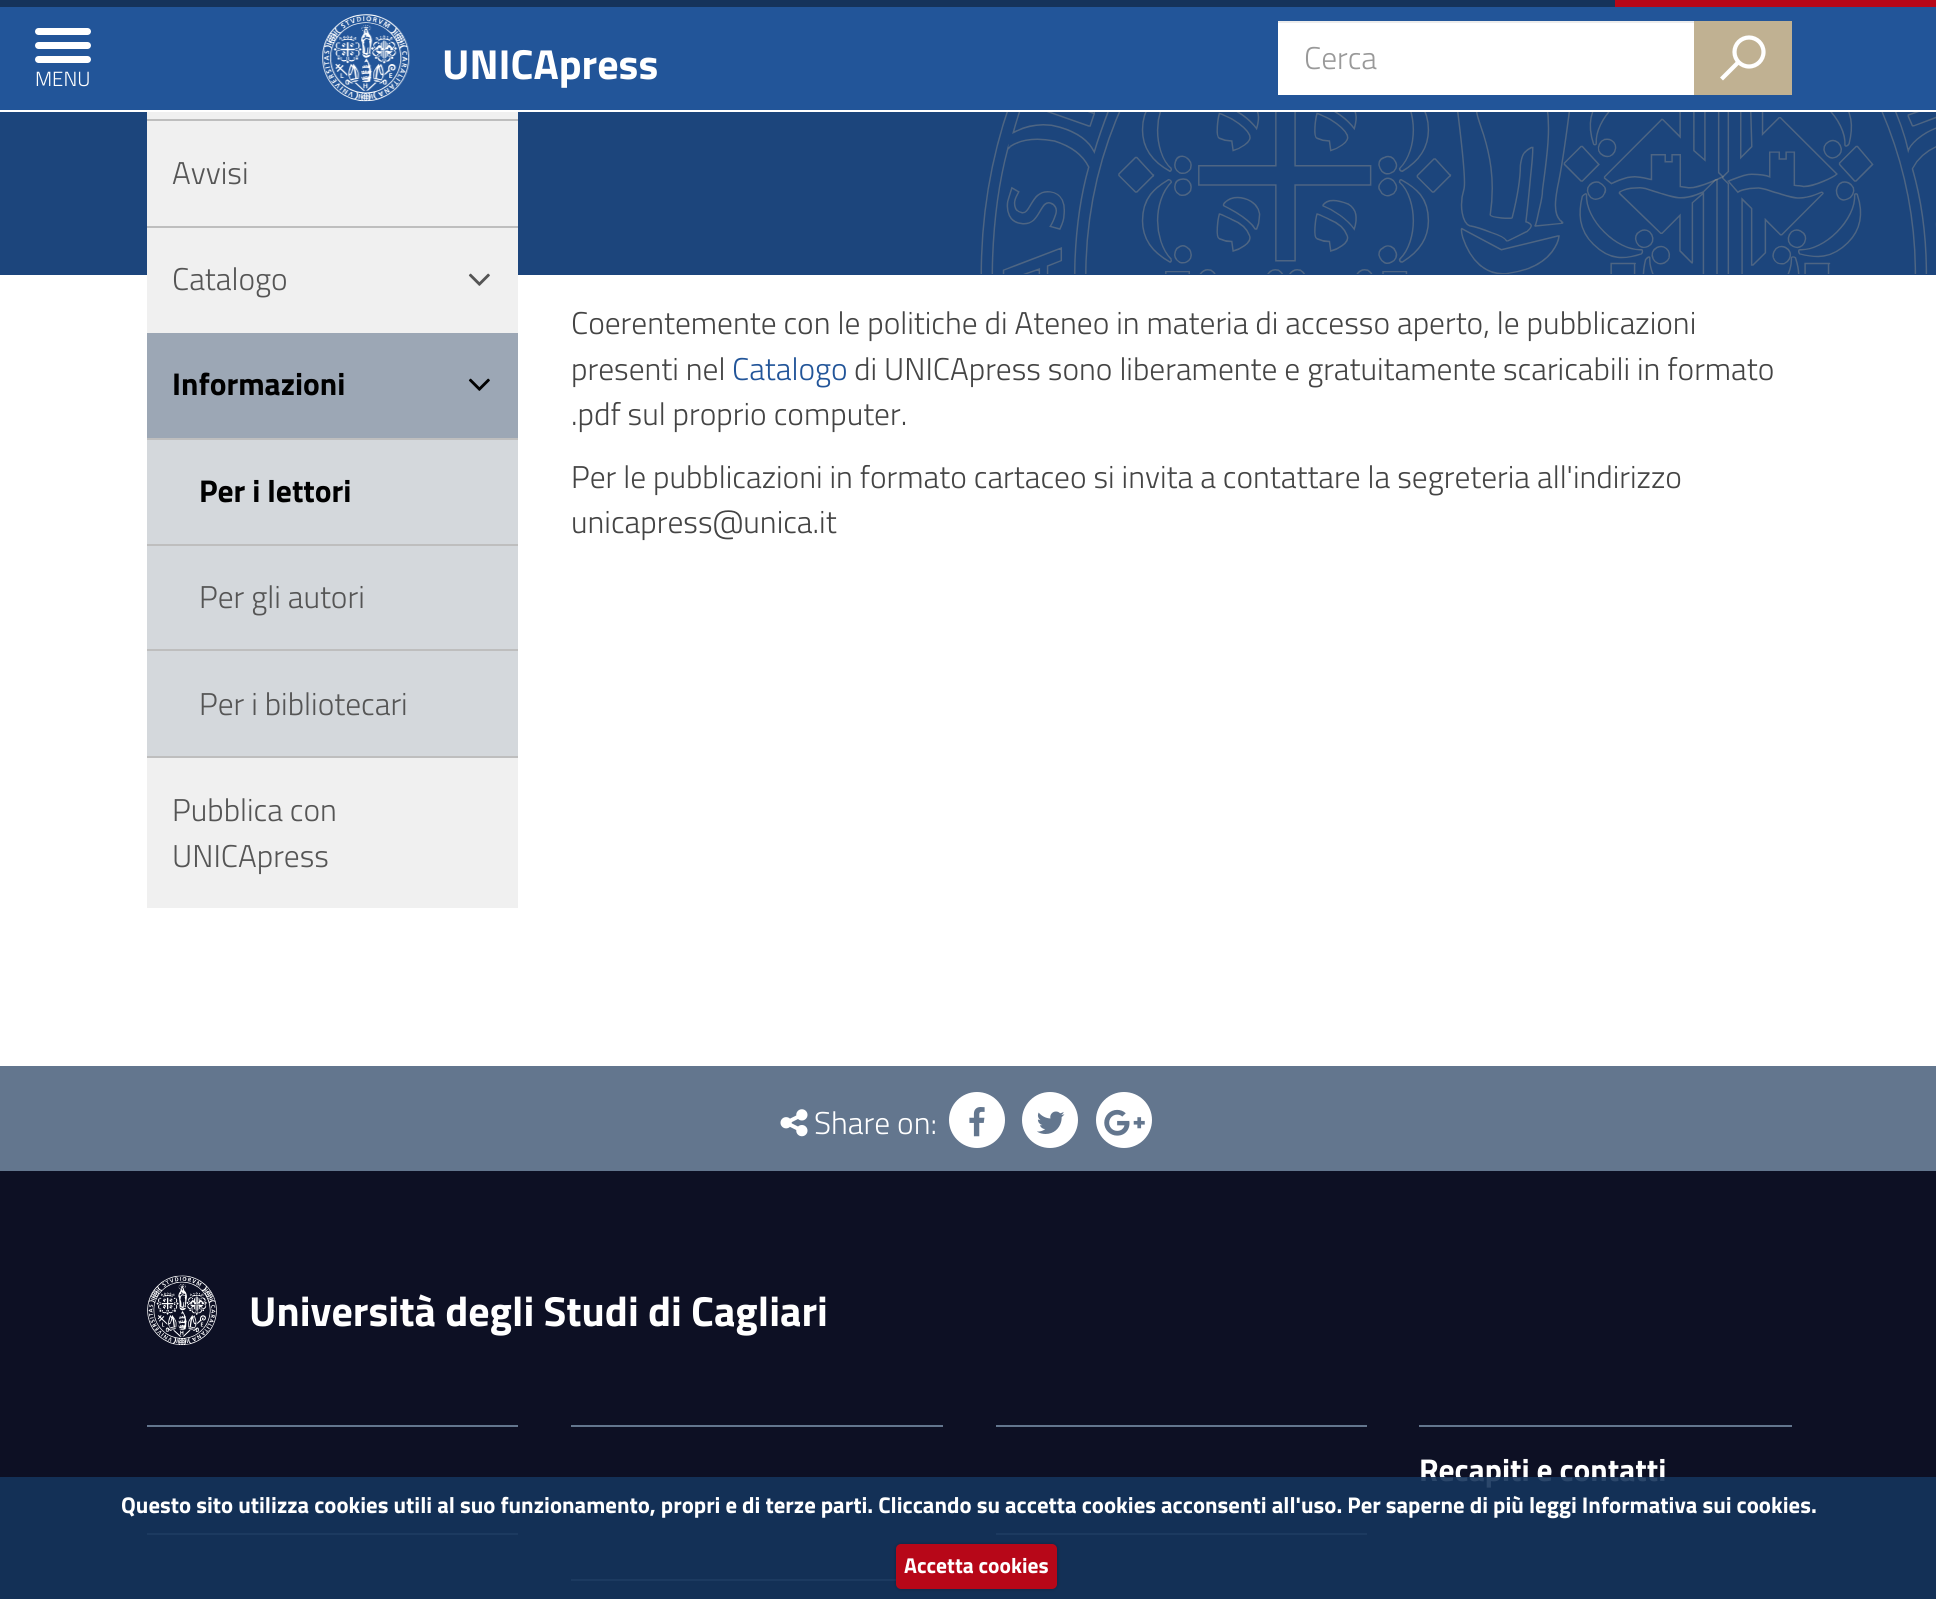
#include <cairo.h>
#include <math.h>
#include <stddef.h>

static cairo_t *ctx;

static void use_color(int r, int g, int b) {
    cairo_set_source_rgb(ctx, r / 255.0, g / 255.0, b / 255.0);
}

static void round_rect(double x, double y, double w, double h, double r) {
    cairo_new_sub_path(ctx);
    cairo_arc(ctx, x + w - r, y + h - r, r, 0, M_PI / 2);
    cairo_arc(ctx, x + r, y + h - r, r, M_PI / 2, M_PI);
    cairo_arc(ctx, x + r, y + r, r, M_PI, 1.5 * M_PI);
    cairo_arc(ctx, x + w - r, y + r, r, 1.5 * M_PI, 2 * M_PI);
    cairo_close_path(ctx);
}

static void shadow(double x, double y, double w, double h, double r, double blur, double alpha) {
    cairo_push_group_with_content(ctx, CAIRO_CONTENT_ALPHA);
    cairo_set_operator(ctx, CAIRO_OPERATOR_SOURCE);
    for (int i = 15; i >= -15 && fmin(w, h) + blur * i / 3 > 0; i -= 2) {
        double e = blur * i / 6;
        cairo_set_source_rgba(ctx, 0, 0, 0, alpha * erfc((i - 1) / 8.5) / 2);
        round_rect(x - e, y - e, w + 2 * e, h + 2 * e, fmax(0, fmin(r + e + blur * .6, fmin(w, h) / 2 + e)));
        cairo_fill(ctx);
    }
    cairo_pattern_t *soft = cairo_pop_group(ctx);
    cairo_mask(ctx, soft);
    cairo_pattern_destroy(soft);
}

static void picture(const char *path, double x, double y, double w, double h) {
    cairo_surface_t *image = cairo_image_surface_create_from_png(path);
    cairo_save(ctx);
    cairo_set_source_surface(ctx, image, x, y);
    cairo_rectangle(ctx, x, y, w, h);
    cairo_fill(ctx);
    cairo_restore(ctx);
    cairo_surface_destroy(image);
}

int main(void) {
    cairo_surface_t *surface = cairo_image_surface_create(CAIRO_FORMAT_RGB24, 1936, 1599);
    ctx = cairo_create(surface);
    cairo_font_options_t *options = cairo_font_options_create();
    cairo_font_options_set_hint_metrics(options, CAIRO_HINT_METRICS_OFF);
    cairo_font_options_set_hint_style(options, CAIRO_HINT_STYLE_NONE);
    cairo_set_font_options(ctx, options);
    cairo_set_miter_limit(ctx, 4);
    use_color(255, 255, 255);
    cairo_paint(ctx);
    use_color(34, 85, 153);
    cairo_rectangle(ctx, 0, 7, 1936, 103);
    cairo_fill(ctx);
    use_color(21, 51, 91);
    cairo_rectangle(ctx, 0, 0, 1615, 7);
    cairo_fill(ctx);
    use_color(183, 7, 24);
    cairo_rectangle(ctx, 1615, 0, 321, 7);
    cairo_fill(ctx);
    use_color(255, 255, 255);
    round_rect(35, 28, 56, 7, 3.5);
    cairo_fill(ctx);
    round_rect(35, 42, 56, 7, 3.5);
    cairo_fill(ctx);
    round_rect(35, 56, 56, 7, 3.5);
    cairo_fill(ctx);
    cairo_select_font_face(ctx, "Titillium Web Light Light", CAIRO_FONT_SLANT_NORMAL, CAIRO_FONT_WEIGHT_NORMAL);
    cairo_set_font_size(ctx, 20.5);
    cairo_move_to(ctx, 35, 86);
    cairo_show_text(ctx, "MENU");
    picture("img1.png", 322, 14, 88, 88);
    cairo_select_font_face(ctx, "Titillium Web", CAIRO_FONT_SLANT_NORMAL, CAIRO_FONT_WEIGHT_BOLD);
    cairo_set_font_size(ctx, 42);
    cairo_move_to(ctx, 442, 79);
    cairo_show_text(ctx, "UNICApress");
    cairo_rectangle(ctx, 1278, 23, 416, 72);
    cairo_fill(ctx);
    use_color(236, 236, 236);
    cairo_rectangle(ctx, 1278, 21, 418, 2);
    cairo_fill(ctx);
    cairo_select_font_face(ctx, "Titillium Web Light Light", CAIRO_FONT_SLANT_NORMAL, CAIRO_FONT_WEIGHT_NORMAL);
    cairo_set_font_size(ctx, 31.5);
    use_color(153, 153, 153);
    cairo_move_to(ctx, 1304, 69);
    cairo_show_text(ctx, "Cerca");
    use_color(192, 177, 146);
    cairo_rectangle(ctx, 1694, 21, 98, 74);
    cairo_fill(ctx);
    cairo_new_path(ctx);
    cairo_move_to(ctx, 1721.5, 79);
    cairo_line_to(ctx, 1738.5, 62);
    use_color(255, 255, 255);
    cairo_set_line_width(ctx, 4.2);
    cairo_stroke(ctx);
    cairo_arc(ctx, 1749, 52, 14.5, 0, 2 * M_PI);
    cairo_stroke(ctx);
    use_color(28, 69, 124);
    cairo_rectangle(ctx, 0, 112, 1936, 163);
    cairo_fill(ctx);
    picture("img2.png", 980, 112, 956, 162);
    use_color(240, 240, 240);
    cairo_rectangle(ctx, 147, 112, 371, 796);
    cairo_fill(ctx);
    use_color(190, 190, 190);
    cairo_rectangle(ctx, 147, 119, 371, 2);
    cairo_fill(ctx);
    use_color(85, 85, 85);
    cairo_move_to(ctx, 172, 184);
    cairo_show_text(ctx, "Avvisi");
    use_color(190, 190, 190);
    cairo_rectangle(ctx, 147, 226, 371, 2);
    cairo_fill(ctx);
    use_color(85, 85, 85);
    cairo_move_to(ctx, 172, 290);
    cairo_show_text(ctx, "Catalogo");
    picture("img3.png", 468, 273, 22, 13);
    use_color(212, 216, 220);
    cairo_rectangle(ctx, 147, 440, 371, 316);
    cairo_fill(ctx);
    use_color(156, 167, 181);
    cairo_rectangle(ctx, 147, 333, 371, 105);
    cairo_fill(ctx);
    cairo_select_font_face(ctx, "Titillium Web", CAIRO_FONT_SLANT_NORMAL, CAIRO_FONT_WEIGHT_BOLD);
    use_color(0, 0, 0);
    cairo_move_to(ctx, 172, 395);
    cairo_show_text(ctx, "Informazioni");
    picture("img4.png", 468, 378, 22, 13);
    use_color(190, 190, 190);
    cairo_rectangle(ctx, 147, 438, 371, 2);
    cairo_fill(ctx);
    use_color(0, 0, 0);
    cairo_move_to(ctx, 199, 502);
    cairo_show_text(ctx, "Per i lettori");
    use_color(190, 190, 190);
    cairo_rectangle(ctx, 147, 544, 371, 2);
    cairo_fill(ctx);
    cairo_select_font_face(ctx, "Titillium Web Light Light", CAIRO_FONT_SLANT_NORMAL, CAIRO_FONT_WEIGHT_NORMAL);
    use_color(85, 85, 85);
    cairo_move_to(ctx, 199, 608);
    cairo_show_text(ctx, "Per gli autori");
    use_color(190, 190, 190);
    cairo_rectangle(ctx, 147, 649, 371, 2);
    cairo_fill(ctx);
    use_color(85, 85, 85);
    cairo_move_to(ctx, 199, 715);
    cairo_show_text(ctx, "Per i bibliotecari");
    use_color(190, 190, 190);
    cairo_rectangle(ctx, 147, 756, 371, 2);
    cairo_fill(ctx);
    use_color(85, 85, 85);
    cairo_move_to(ctx, 172, 821);
    cairo_show_text(ctx, "Pubblica con");
    cairo_move_to(ctx, 172, 867);
    cairo_show_text(ctx, "UNICApress");
    use_color(68, 68, 68);
    cairo_move_to(ctx, 571, 334);
    cairo_show_text(ctx, "Coerentemente con le politiche di Ateneo in materia di accesso aperto, le pubblicazioni");
    cairo_move_to(ctx, 571, 380);
    cairo_show_text(ctx, "presenti nel");
    use_color(34, 85, 153);
    cairo_move_to(ctx, 732, 380);
    cairo_show_text(ctx, "Catalogo");
    use_color(68, 68, 68);
    cairo_move_to(ctx, 854, 380);
    cairo_show_text(ctx, "di UNICApress sono liberamente e gratuitamente scaricabili in formato");
    cairo_move_to(ctx, 571, 425);
    cairo_show_text(ctx, ".pdf sul proprio computer.");
    cairo_move_to(ctx, 571, 488);
    cairo_show_text(ctx, "Per le pubblicazioni in formato cartaceo si invita a contattare la segreteria all'indirizzo");
    cairo_move_to(ctx, 571, 533);
    cairo_show_text(ctx, "unicapress@unica.it");
    use_color(99, 118, 142);
    cairo_rectangle(ctx, 0, 1066, 1936, 105);
    cairo_fill(ctx);
    picture("img5.png", 780, 1109, 28, 28);
    use_color(255, 255, 255);
    cairo_move_to(ctx, 814, 1134);
    cairo_show_text(ctx, "Share on:");
    cairo_new_path(ctx);
    cairo_arc(ctx, 977, 1120, 28, 0, 2 * M_PI);
    cairo_fill(ctx);
    picture("img6.png", 969, 1107, 16, 30);
    cairo_arc(ctx, 1050, 1120, 28, 0, 2 * M_PI);
    cairo_fill(ctx);
    picture("img7.png", 1037, 1111, 28, 23);
    cairo_arc(ctx, 1124, 1120, 28, 0, 2 * M_PI);
    cairo_fill(ctx);
    picture("img8.png", 1104, 1109, 41, 27);
    use_color(13, 16, 36);
    cairo_rectangle(ctx, 0, 1171, 1936, 428);
    cairo_fill(ctx);
    picture("img9.png", 147, 1275, 70, 70);
    cairo_select_font_face(ctx, "Titillium Web", CAIRO_FONT_SLANT_NORMAL, CAIRO_FONT_WEIGHT_BOLD);
    cairo_set_font_size(ctx, 42);
    use_color(255, 255, 255);
    cairo_move_to(ctx, 249, 1326);
    cairo_show_text(ctx, "Università degli Studi di Cagliari");
    use_color(99, 118, 142);
    cairo_rectangle(ctx, 147, 1425, 371, 2);
    cairo_fill(ctx);
    cairo_rectangle(ctx, 147, 1533, 371, 2);
    cairo_fill(ctx);
    cairo_rectangle(ctx, 571, 1425, 372, 2);
    cairo_fill(ctx);
    cairo_rectangle(ctx, 571, 1579, 325, 2);
    cairo_fill(ctx);
    cairo_rectangle(ctx, 996, 1425, 371, 2);
    cairo_fill(ctx);
    cairo_rectangle(ctx, 996, 1533, 371, 2);
    cairo_fill(ctx);
    cairo_rectangle(ctx, 1419, 1425, 373, 2);
    cairo_fill(ctx);
    cairo_set_font_size(ctx, 31.5);
    use_color(255, 255, 255);
    cairo_move_to(ctx, 1419, 1481);
    cairo_show_text(ctx, "Recapiti e contatti");
    cairo_set_source_rgba(ctx, 0.082, 0.2, 0.357, 0.9);
    cairo_rectangle(ctx, 0, 1477, 1936, 122);
    cairo_fill(ctx);
    cairo_set_font_size(ctx, 22.75);
    use_color(255, 255, 255);
    cairo_move_to(ctx, 121, 1513);
    cairo_show_text(ctx, "Questo sito utilizza cookies utili al suo funzionamento, propri e di terze parti. Cliccando su accetta cookies acconsenti all'uso. Per saperne di più leggi Informativa sui cookies.");
    use_color(0, 0, 0);
    shadow(896, 1544, 161, 45, 5, 2, 0.25);
    use_color(183, 7, 24);
    round_rect(896, 1544, 161, 45, 5);
    cairo_fill(ctx);
    cairo_set_font_size(ctx, 21.5);
    use_color(255, 255, 255);
    cairo_move_to(ctx, 904, 1573);
    cairo_show_text(ctx, "Accetta cookies");
    cairo_surface_write_to_png(surface, "result.png");
    cairo_font_options_destroy(options);
    cairo_destroy(ctx);
    cairo_surface_destroy(surface);
    return 0;
}
